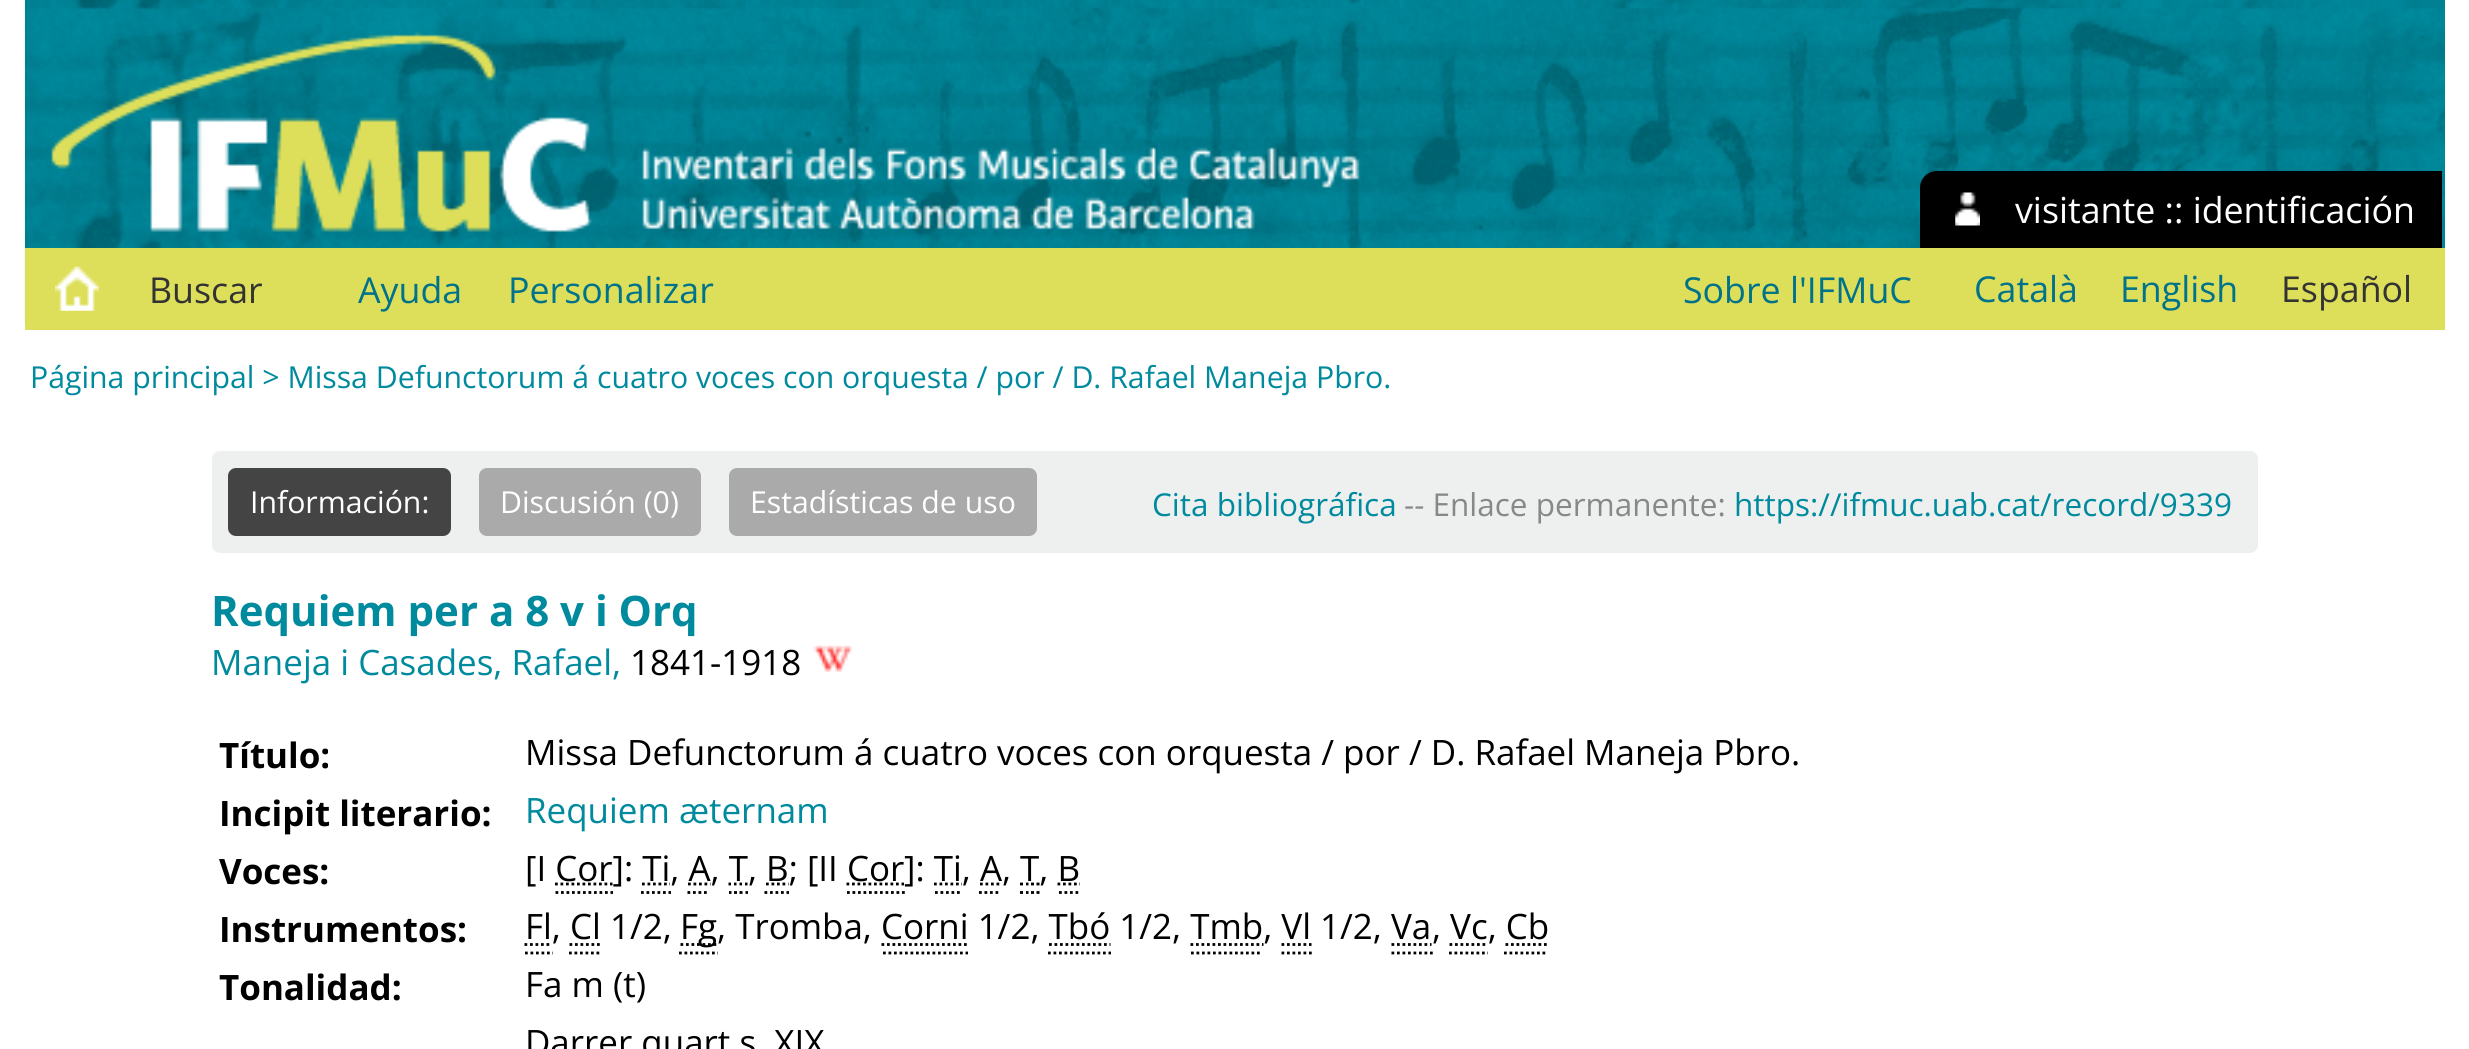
#include <cairo.h>
#include <math.h>
#include <stddef.h>

static cairo_t *ctx;

static void use_color(int r, int g, int b) {
    cairo_set_source_rgb(ctx, r / 255.0, g / 255.0, b / 255.0);
}

static void round_rect(double x, double y, double w, double h, double r) {
    cairo_new_sub_path(ctx);
    cairo_arc(ctx, x + w - r, y + h - r, r, 0, M_PI / 2);
    cairo_arc(ctx, x + r, y + h - r, r, M_PI / 2, M_PI);
    cairo_arc(ctx, x + r, y + r, r, M_PI, 1.5 * M_PI);
    cairo_arc(ctx, x + w - r, y + r, r, 1.5 * M_PI, 2 * M_PI);
    cairo_close_path(ctx);
}

static void picture(const char *path, double x, double y, double w, double h) {
    cairo_surface_t *image = cairo_image_surface_create_from_png(path);
    cairo_save(ctx);
    cairo_set_source_surface(ctx, image, x, y);
    cairo_rectangle(ctx, x, y, w, h);
    cairo_fill(ctx);
    cairo_restore(ctx);
    cairo_surface_destroy(image);
}

int main(void) {
    cairo_surface_t *surface = cairo_image_surface_create(CAIRO_FORMAT_RGB24, 2469, 1049);
    ctx = cairo_create(surface);
    cairo_font_options_t *options = cairo_font_options_create();
    cairo_font_options_set_hint_metrics(options, CAIRO_HINT_METRICS_OFF);
    cairo_font_options_set_hint_style(options, CAIRO_HINT_STYLE_NONE);
    cairo_set_font_options(ctx, options);
    cairo_set_miter_limit(ctx, 4);
    use_color(255, 255, 255);
    cairo_paint(ctx);
    use_color(0, 135, 154);
    cairo_rectangle(ctx, 2444, 0, 1, 248);
    cairo_fill(ctx);
    picture("img1.png", 24, 0, 2421, 323);
    use_color(0, 0, 0);
    cairo_new_path(ctx);
    cairo_move_to(ctx, 1937, 171);
    cairo_line_to(ctx, 2442, 171);
    cairo_line_to(ctx, 2442, 248);
    cairo_line_to(ctx, 1920, 248);
    cairo_line_to(ctx, 1920, 188);
    cairo_curve_to(ctx, 1920, 178.5, 1927.5, 171, 1937, 171);
    cairo_close_path(ctx);
    cairo_fill(ctx);
    picture("img2.png", 1955, 192, 25, 34);
    cairo_select_font_face(ctx, "Open Sans", CAIRO_FONT_SLANT_NORMAL, CAIRO_FONT_WEIGHT_NORMAL);
    cairo_set_font_size(ctx, 35.75);
    use_color(255, 255, 255);
    cairo_move_to(ctx, 2015, 223);
    cairo_show_text(ctx, "visitante :: identificación");
    use_color(221, 223, 90);
    cairo_rectangle(ctx, 25, 248, 2420, 82);
    cairo_fill(ctx);
    picture("img3.png", 55, 266, 44, 45);
    use_color(51, 51, 51);
    cairo_move_to(ctx, 149, 303);
    cairo_show_text(ctx, "Buscar");
    use_color(0, 114, 138);
    cairo_move_to(ctx, 358, 303);
    cairo_show_text(ctx, "Ayuda");
    cairo_move_to(ctx, 508, 303);
    cairo_show_text(ctx, "Personalizar");
    cairo_move_to(ctx, 1683, 303);
    cairo_show_text(ctx, "Sobre l'IFMuC");
    cairo_move_to(ctx, 1974, 302);
    cairo_show_text(ctx, "Català");
    cairo_move_to(ctx, 2120, 302);
    cairo_show_text(ctx, "English");
    use_color(51, 51, 51);
    cairo_move_to(ctx, 2281, 302);
    cairo_show_text(ctx, "Español");
    cairo_set_font_size(ctx, 30.25);
    use_color(0, 138, 158);
    cairo_move_to(ctx, 30, 388);
    cairo_show_text(ctx, "Página principal > Missa Defunctorum á cuatro voces con orquesta / por / D. Rafael Maneja Pbro.");
    use_color(238, 240, 239);
    round_rect(212, 451, 2046, 102, 8);
    cairo_fill(ctx);
    use_color(68, 68, 68);
    round_rect(228, 468, 223, 68, 8);
    cairo_fill(ctx);
    use_color(255, 255, 255);
    cairo_move_to(ctx, 250, 513);
    cairo_show_text(ctx, "Información:");
    use_color(170, 170, 170);
    round_rect(479, 468, 222, 68, 8);
    cairo_fill(ctx);
    use_color(255, 255, 255);
    cairo_move_to(ctx, 500, 513);
    cairo_show_text(ctx, "Discusión (0)");
    use_color(170, 170, 170);
    round_rect(729, 468, 308, 68, 8);
    cairo_fill(ctx);
    use_color(255, 255, 255);
    cairo_move_to(ctx, 750, 513);
    cairo_show_text(ctx, "Estadísticas de uso");
    cairo_set_font_size(ctx, 31.5);
    use_color(0, 138, 158);
    cairo_move_to(ctx, 1152, 516);
    cairo_show_text(ctx, "Cita bibliográfica");
    use_color(136, 136, 136);
    cairo_move_to(ctx, 1404, 516);
    cairo_show_text(ctx, "-- Enlace permanente:");
    use_color(0, 138, 158);
    cairo_move_to(ctx, 1734, 516);
    cairo_show_text(ctx, "https://ifmuc.uab.cat/record/9339");
    cairo_select_font_face(ctx, "Open Sans", CAIRO_FONT_SLANT_NORMAL, CAIRO_FONT_WEIGHT_BOLD);
    cairo_set_font_size(ctx, 42);
    cairo_move_to(ctx, 211, 626);
    cairo_show_text(ctx, "Requiem per a 8 v i Orq");
    cairo_select_font_face(ctx, "Open Sans", CAIRO_FONT_SLANT_NORMAL, CAIRO_FONT_WEIGHT_NORMAL);
    cairo_set_font_size(ctx, 34.95);
    cairo_move_to(ctx, 211, 675);
    cairo_show_text(ctx, "Maneja i Casades, Rafael,");
    use_color(0, 0, 0);
    cairo_move_to(ctx, 630, 675);
    cairo_show_text(ctx, "1841-1918");
    picture("img4.png", 813, 645, 40, 27);
    cairo_select_font_face(ctx, "Open Sans", CAIRO_FONT_SLANT_NORMAL, CAIRO_FONT_WEIGHT_BOLD);
    cairo_move_to(ctx, 219, 768);
    cairo_show_text(ctx, "Título:");
    cairo_select_font_face(ctx, "Open Sans", CAIRO_FONT_SLANT_NORMAL, CAIRO_FONT_WEIGHT_NORMAL);
    cairo_move_to(ctx, 525, 765);
    cairo_show_text(ctx, "Missa Defunctorum á cuatro voces con orquesta / por / D. Rafael Maneja Pbro.");
    cairo_select_font_face(ctx, "Open Sans", CAIRO_FONT_SLANT_NORMAL, CAIRO_FONT_WEIGHT_BOLD);
    cairo_move_to(ctx, 219, 826);
    cairo_show_text(ctx, "Incipit literario:");
    cairo_select_font_face(ctx, "Open Sans", CAIRO_FONT_SLANT_NORMAL, CAIRO_FONT_WEIGHT_NORMAL);
    use_color(0, 138, 158);
    cairo_move_to(ctx, 525, 823);
    cairo_show_text(ctx, "Requiem æternam");
    cairo_select_font_face(ctx, "Open Sans", CAIRO_FONT_SLANT_NORMAL, CAIRO_FONT_WEIGHT_BOLD);
    use_color(0, 0, 0);
    cairo_move_to(ctx, 219, 884);
    cairo_show_text(ctx, "Voces:");
    cairo_select_font_face(ctx, "Open Sans", CAIRO_FONT_SLANT_NORMAL, CAIRO_FONT_WEIGHT_NORMAL);
    cairo_move_to(ctx, 525, 881);
    cairo_show_text(ctx, "[I Cor]: Ti, A, T, B; [II Cor");
    cairo_new_path(ctx);
    cairo_move_to(ctx, 847, 892.5);
    cairo_line_to(ctx, 905, 892.5);
    cairo_move_to(ctx, 846.5, 884);
    cairo_line_to(ctx, 904, 884);
    cairo_set_line_width(ctx, 2.8);
    cairo_set_dash(ctx, (double[]){2.75, 2.75}, 2, 0);
    cairo_stroke(ctx);
    cairo_move_to(ctx, 904, 881);
    cairo_show_text(ctx, "]: Ti, A, T, B");
    cairo_new_path(ctx);
    cairo_move_to(ctx, 555.5, 892.5);
    cairo_line_to(ctx, 613, 892.5);
    cairo_move_to(ctx, 555, 884);
    cairo_line_to(ctx, 612.5, 884);
    cairo_stroke(ctx);
    cairo_new_path(ctx);
    cairo_move_to(ctx, 641, 892.5);
    cairo_line_to(ctx, 671, 892.5);
    cairo_move_to(ctx, 642, 884);
    cairo_line_to(ctx, 670, 884);
    cairo_stroke(ctx);
    cairo_new_path(ctx);
    cairo_move_to(ctx, 687.5, 892.5);
    cairo_line_to(ctx, 709.5, 892.5);
    cairo_move_to(ctx, 688, 884);
    cairo_line_to(ctx, 710.5, 884);
    cairo_stroke(ctx);
    cairo_new_path(ctx);
    cairo_move_to(ctx, 729, 892.5);
    cairo_line_to(ctx, 731.5, 892.5);
    cairo_move_to(ctx, 734, 892.5);
    cairo_line_to(ctx, 737, 892.5);
    cairo_move_to(ctx, 739.5, 892.5);
    cairo_line_to(ctx, 742.5, 892.5);
    cairo_move_to(ctx, 745.5, 892.5);
    cairo_line_to(ctx, 748, 892.5);
    cairo_move_to(ctx, 728.5, 884);
    cairo_line_to(ctx, 731, 884);
    cairo_move_to(ctx, 734, 884);
    cairo_line_to(ctx, 736.5, 884);
    cairo_move_to(ctx, 739.5, 884);
    cairo_line_to(ctx, 742, 884);
    cairo_move_to(ctx, 745, 884);
    cairo_line_to(ctx, 747.5, 884);
    cairo_set_dash(ctx, NULL, 0, 0);
    cairo_stroke(ctx);
    cairo_new_path(ctx);
    cairo_move_to(ctx, 764.5, 892.5);
    cairo_line_to(ctx, 789, 892.5);
    cairo_move_to(ctx, 766, 884);
    cairo_line_to(ctx, 788.5, 884);
    cairo_set_dash(ctx, (double[]){2.75, 2.75}, 2, 0);
    cairo_stroke(ctx);
    cairo_new_path(ctx);
    cairo_move_to(ctx, 935, 892.5);
    cairo_line_to(ctx, 962.5, 892.5);
    cairo_move_to(ctx, 934, 884);
    cairo_line_to(ctx, 962, 884);
    cairo_stroke(ctx);
    cairo_new_path(ctx);
    cairo_move_to(ctx, 979, 892.5);
    cairo_line_to(ctx, 1001, 892.5);
    cairo_move_to(ctx, 980, 884);
    cairo_line_to(ctx, 1002, 884);
    cairo_stroke(ctx);
    cairo_new_path(ctx);
    cairo_move_to(ctx, 1020, 892.5);
    cairo_line_to(ctx, 1023, 892.5);
    cairo_move_to(ctx, 1026, 892.5);
    cairo_line_to(ctx, 1028.5, 892.5);
    cairo_move_to(ctx, 1031, 892.5);
    cairo_line_to(ctx, 1034, 892.5);
    cairo_move_to(ctx, 1036.5, 892.5);
    cairo_line_to(ctx, 1039.5, 892.5);
    cairo_move_to(ctx, 1020, 884);
    cairo_line_to(ctx, 1023, 884);
    cairo_move_to(ctx, 1026, 884);
    cairo_line_to(ctx, 1028.5, 884);
    cairo_move_to(ctx, 1031, 884);
    cairo_line_to(ctx, 1034, 884);
    cairo_move_to(ctx, 1036.5, 884);
    cairo_line_to(ctx, 1039.5, 884);
    cairo_set_dash(ctx, NULL, 0, 0);
    cairo_stroke(ctx);
    cairo_new_path(ctx);
    cairo_move_to(ctx, 1059, 892.5);
    cairo_line_to(ctx, 1081, 892.5);
    cairo_move_to(ctx, 1057.5, 884);
    cairo_line_to(ctx, 1080, 884);
    cairo_set_dash(ctx, (double[]){2.75, 2.75}, 2, 0);
    cairo_stroke(ctx);
    cairo_select_font_face(ctx, "Open Sans", CAIRO_FONT_SLANT_NORMAL, CAIRO_FONT_WEIGHT_BOLD);
    cairo_move_to(ctx, 219, 942);
    cairo_show_text(ctx, "Instrumentos:");
    cairo_new_path(ctx);
    cairo_move_to(ctx, 525, 953);
    cairo_line_to(ctx, 553, 953);
    cairo_move_to(ctx, 524.5, 944.5);
    cairo_line_to(ctx, 551.5, 944.5);
    cairo_stroke(ctx);
    cairo_select_font_face(ctx, "Open Sans", CAIRO_FONT_SLANT_NORMAL, CAIRO_FONT_WEIGHT_NORMAL);
    cairo_move_to(ctx, 525, 939);
    cairo_show_text(ctx, "Fl, Cl 1/2,");
    cairo_new_path(ctx);
    cairo_move_to(ctx, 679, 953);
    cairo_line_to(ctx, 718, 953);
    cairo_move_to(ctx, 680.5, 944.5);
    cairo_line_to(ctx, 717.5, 944.5);
    cairo_stroke(ctx);
    cairo_move_to(ctx, 680, 939);
    cairo_show_text(ctx, "Fg, Tromba, Corni 1/2, Tbó 1/2, Tmb, Vl 1/2, Va");
    cairo_new_path(ctx);
    cairo_move_to(ctx, 1391.5, 953);
    cairo_line_to(ctx, 1433, 953);
    cairo_move_to(ctx, 1391.5, 944.5);
    cairo_line_to(ctx, 1431.5, 944.5);
    cairo_stroke(ctx);
    cairo_move_to(ctx, 1432, 939);
    cairo_show_text(ctx, ", Vc, Cb");
    cairo_new_path(ctx);
    cairo_move_to(ctx, 569, 953);
    cairo_line_to(ctx, 599.5, 953);
    cairo_move_to(ctx, 569.5, 944.5);
    cairo_line_to(ctx, 600.5, 944.5);
    cairo_stroke(ctx);
    cairo_new_path(ctx);
    cairo_move_to(ctx, 881.5, 944.5);
    cairo_line_to(ctx, 969, 944.5);
    cairo_stroke(ctx);
    cairo_new_path(ctx);
    cairo_move_to(ctx, 1048, 953);
    cairo_line_to(ctx, 1111, 953);
    cairo_move_to(ctx, 1049, 944.5);
    cairo_line_to(ctx, 1110.5, 944.5);
    cairo_stroke(ctx);
    cairo_new_path(ctx);
    cairo_move_to(ctx, 1190.5, 944.5);
    cairo_line_to(ctx, 1263.5, 944.5);
    cairo_stroke(ctx);
    cairo_new_path(ctx);
    cairo_move_to(ctx, 1281.5, 953);
    cairo_line_to(ctx, 1312, 953);
    cairo_move_to(ctx, 1281.5, 944.5);
    cairo_line_to(ctx, 1311.5, 944.5);
    cairo_stroke(ctx);
    cairo_new_path(ctx);
    cairo_move_to(ctx, 1449, 953);
    cairo_line_to(ctx, 1488, 953);
    cairo_move_to(ctx, 1449.5, 944.5);
    cairo_line_to(ctx, 1487.5, 944.5);
    cairo_stroke(ctx);
    cairo_new_path(ctx);
    cairo_move_to(ctx, 1504, 953);
    cairo_line_to(ctx, 1548, 953);
    cairo_move_to(ctx, 1505.5, 944.5);
    cairo_line_to(ctx, 1549, 944.5);
    cairo_stroke(ctx);
    cairo_new_path(ctx);
    cairo_move_to(ctx, 883, 953);
    cairo_line_to(ctx, 968, 953);
    cairo_stroke(ctx);
    cairo_new_path(ctx);
    cairo_move_to(ctx, 1191, 953);
    cairo_line_to(ctx, 1262, 953);
    cairo_stroke(ctx);
    cairo_select_font_face(ctx, "Open Sans", CAIRO_FONT_SLANT_NORMAL, CAIRO_FONT_WEIGHT_BOLD);
    cairo_move_to(ctx, 219, 1000);
    cairo_show_text(ctx, "Tonalidad:");
    cairo_select_font_face(ctx, "Open Sans", CAIRO_FONT_SLANT_NORMAL, CAIRO_FONT_WEIGHT_NORMAL);
    cairo_move_to(ctx, 525, 997);
    cairo_show_text(ctx, "Fa m (t)");
    cairo_move_to(ctx, 525, 1055);
    cairo_show_text(ctx, "Darrer quart s. XIX");
    cairo_surface_write_to_png(surface, "result.png");
    cairo_font_options_destroy(options);
    cairo_destroy(ctx);
    cairo_surface_destroy(surface);
    return 0;
}
